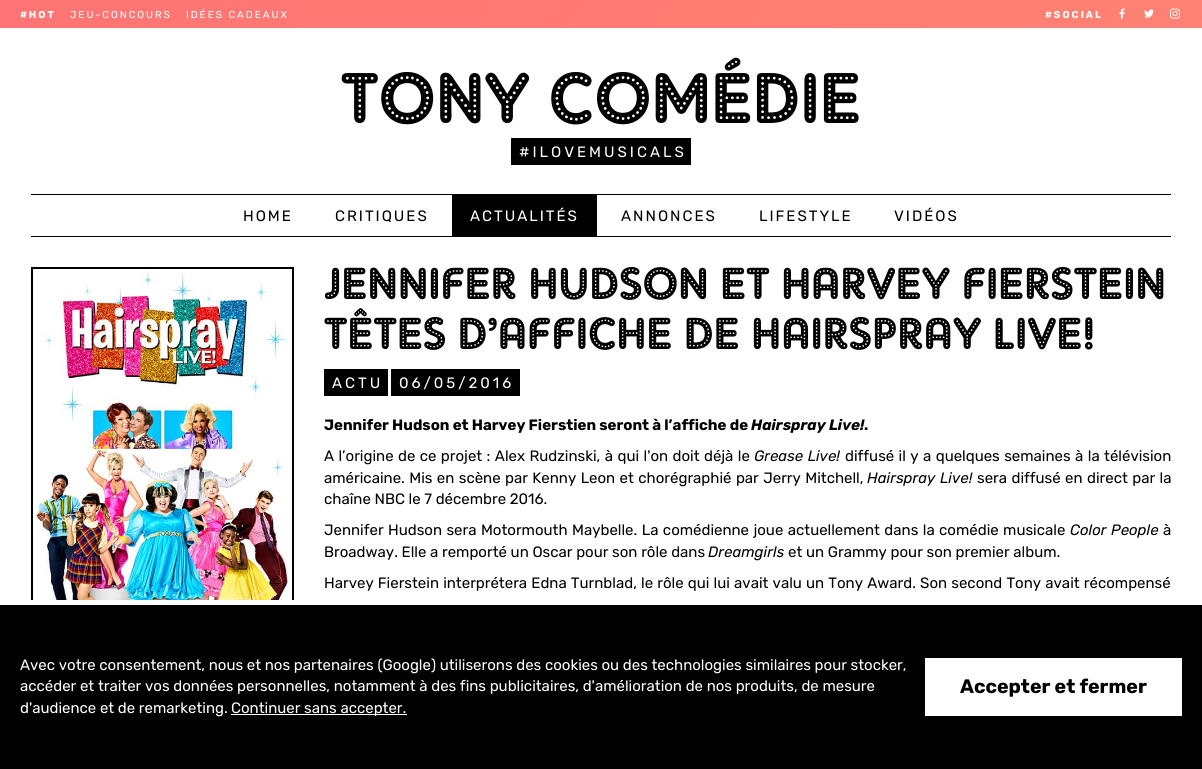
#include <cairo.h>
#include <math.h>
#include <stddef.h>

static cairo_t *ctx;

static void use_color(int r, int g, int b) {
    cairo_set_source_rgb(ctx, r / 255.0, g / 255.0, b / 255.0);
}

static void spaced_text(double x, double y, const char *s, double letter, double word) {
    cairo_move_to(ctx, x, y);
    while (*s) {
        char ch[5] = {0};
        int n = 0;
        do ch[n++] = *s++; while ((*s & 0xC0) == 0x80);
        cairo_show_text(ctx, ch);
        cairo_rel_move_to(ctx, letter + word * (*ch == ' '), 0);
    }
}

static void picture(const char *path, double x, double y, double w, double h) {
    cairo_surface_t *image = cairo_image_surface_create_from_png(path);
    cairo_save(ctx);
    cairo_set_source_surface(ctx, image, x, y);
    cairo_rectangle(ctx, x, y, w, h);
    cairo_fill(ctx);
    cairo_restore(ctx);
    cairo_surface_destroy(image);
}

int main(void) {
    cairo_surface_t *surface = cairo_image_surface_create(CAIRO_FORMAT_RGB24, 1202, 769);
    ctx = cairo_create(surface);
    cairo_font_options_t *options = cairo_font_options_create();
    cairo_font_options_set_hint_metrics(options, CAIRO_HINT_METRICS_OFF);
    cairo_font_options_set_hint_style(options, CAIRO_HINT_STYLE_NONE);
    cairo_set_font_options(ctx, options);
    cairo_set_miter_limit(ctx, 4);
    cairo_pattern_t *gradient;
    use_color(255, 255, 255);
    cairo_paint(ctx);
    gradient = cairo_pattern_create_linear(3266, -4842, 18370, 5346);
    cairo_pattern_add_color_stop_rgba(gradient, 0, 1, 0.455, 0.455, 1);
    cairo_pattern_add_color_stop_rgba(gradient, 0.25, 1, 0.694, 0.435, 1);
    cairo_pattern_add_color_stop_rgba(gradient, 0.5, 1, 0.902, 0.486, 1);
    cairo_pattern_add_color_stop_rgba(gradient, 0.75, 0.561, 0.882, 0.906, 1);
    cairo_pattern_add_color_stop_rgba(gradient, 1, 0.812, 0.682, 0.949, 1);
    cairo_set_source(ctx, gradient);
    cairo_pattern_destroy(gradient);
    cairo_rectangle(ctx, 0, 0, 1202, 28);
    cairo_fill(ctx);
    cairo_select_font_face(ctx, "Rubik", CAIRO_FONT_SLANT_NORMAL, CAIRO_FONT_WEIGHT_BOLD);
    cairo_set_font_size(ctx, 10);
    use_color(255, 255, 255);
    spaced_text(20, 18, "#HOT", 2, 0);
    cairo_select_font_face(ctx, "Rubik", CAIRO_FONT_SLANT_NORMAL, CAIRO_FONT_WEIGHT_NORMAL);
    spaced_text(70, 18, "JEU-CONCOURS", 2, 0);
    spaced_text(186, 18, "IDÉES CADEAUX", 2, 0);
    cairo_select_font_face(ctx, "Rubik", CAIRO_FONT_SLANT_NORMAL, CAIRO_FONT_WEIGHT_BOLD);
    spaced_text(1045, 18, "#SOCIAL", 2, 0);
    picture("img1.png", 1119, 8, 6, 11);
    picture("img2.png", 1144, 9, 10, 9);
    picture("img3.png", 1170, 8, 10, 11);
    cairo_select_font_face(ctx, "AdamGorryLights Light", CAIRO_FONT_SLANT_NORMAL, CAIRO_FONT_WEIGHT_NORMAL);
    cairo_set_font_size(ctx, 72);
    use_color(0, 0, 0);
    cairo_move_to(ctx, 341, 123);
    cairo_show_text(ctx, "TONY COMÉDIE");
    cairo_rectangle(ctx, 511, 138, 180, 27);
    cairo_fill(ctx);
    cairo_select_font_face(ctx, "Rubik", CAIRO_FONT_SLANT_NORMAL, CAIRO_FONT_WEIGHT_NORMAL);
    cairo_set_font_size(ctx, 15);
    use_color(255, 255, 255);
    spaced_text(519, 157, "#ILOVEMUSICALS", 3, 0);
    use_color(0, 0, 0);
    cairo_rectangle(ctx, 31, 194, 1140, 1);
    cairo_fill(ctx);
    cairo_rectangle(ctx, 31, 236, 1140, 1);
    cairo_fill(ctx);
    spaced_text(243, 221, "HOME", 2, 0);
    spaced_text(335, 221, "CRITIQUES", 2, 0);
    cairo_rectangle(ctx, 452, 195, 145, 41);
    cairo_fill(ctx);
    use_color(255, 255, 255);
    spaced_text(470, 221, "ACTUALITÉS", 2, 0);
    use_color(0, 0, 0);
    spaced_text(621, 221, "ANNONCES", 2, 0);
    spaced_text(759, 221, "LIFESTYLE", 2, 0);
    spaced_text(894, 221, "VIDÉOS", 2, 0);
    cairo_rectangle(ctx, 32, 268, 261, 390);
    cairo_stroke(ctx);
    picture("img4.png", 33, 269, 259, 331);
    cairo_select_font_face(ctx, "AdamGorryLights Light", CAIRO_FONT_SLANT_NORMAL, CAIRO_FONT_WEIGHT_NORMAL);
    cairo_set_font_size(ctx, 45);
    cairo_move_to(ctx, 324, 299);
    cairo_show_text(ctx, "JENNIFER HUDSON ET HARVEY FIERSTEIN");
    cairo_move_to(ctx, 324, 349);
    cairo_show_text(ctx, "TÊTES D’AFFICHE DE HAIRSPRAY LIVE!");
    cairo_rectangle(ctx, 324, 369, 64, 27);
    cairo_fill(ctx);
    cairo_select_font_face(ctx, "Rubik", CAIRO_FONT_SLANT_NORMAL, CAIRO_FONT_WEIGHT_NORMAL);
    cairo_set_font_size(ctx, 15);
    use_color(255, 255, 255);
    spaced_text(332, 388, "ACTU", 3, 0);
    use_color(0, 0, 0);
    cairo_rectangle(ctx, 391, 369, 129, 27);
    cairo_fill(ctx);
    use_color(255, 255, 255);
    spaced_text(399, 388, "06/05/2016", 3, 0);
    cairo_select_font_face(ctx, "Rubik", CAIRO_FONT_SLANT_NORMAL, CAIRO_FONT_WEIGHT_BOLD);
    use_color(0, 0, 0);
    cairo_move_to(ctx, 324, 430);
    cairo_show_text(ctx, "Jennifer Hudson et Harvey Fierstien seront à l’affiche de");
    cairo_select_font_face(ctx, "Rubik", CAIRO_FONT_SLANT_ITALIC, CAIRO_FONT_WEIGHT_BOLD);
    cairo_move_to(ctx, 751, 430);
    cairo_show_text(ctx, "Hairspray Live!");
    cairo_select_font_face(ctx, "Rubik", CAIRO_FONT_SLANT_NORMAL, CAIRO_FONT_WEIGHT_BOLD);
    cairo_move_to(ctx, 864, 430);
    cairo_show_text(ctx, ".");
    cairo_select_font_face(ctx, "Rubik", CAIRO_FONT_SLANT_NORMAL, CAIRO_FONT_WEIGHT_NORMAL);
    spaced_text(324, 461, "A l’origine de ce projet : Alex Rudzinski, à qui l'on doit déjà le", 0, 0.75);
    cairo_select_font_face(ctx, "Rubik", CAIRO_FONT_SLANT_ITALIC, CAIRO_FONT_WEIGHT_NORMAL);
    spaced_text(754, 461, "Grease Live!", 0, 0.75);
    cairo_select_font_face(ctx, "Rubik", CAIRO_FONT_SLANT_NORMAL, CAIRO_FONT_WEIGHT_NORMAL);
    spaced_text(845, 461, "diffusé il y a quelques semaines à la télévision", 0, 0.75);
    spaced_text(324, 483, "américaine. Mis en scène par Kenny Leon et chorégraphié par Jerry Mitchell,", 0, 0.75);
    cairo_select_font_face(ctx, "Rubik", CAIRO_FONT_SLANT_ITALIC, CAIRO_FONT_WEIGHT_NORMAL);
    spaced_text(867, 483, "Hairspray Live!", 0, 1);
    cairo_select_font_face(ctx, "Rubik", CAIRO_FONT_SLANT_NORMAL, CAIRO_FONT_WEIGHT_NORMAL);
    spaced_text(977, 483, "sera diffusé en direct par la", 0, 0.75);
    cairo_move_to(ctx, 324, 504);
    cairo_show_text(ctx, "chaîne NBC le 7 décembre 2016.");
    spaced_text(324, 535, "Jennifer Hudson sera Motormouth Maybelle. La comédienne joue actuellement dans la comédie musicale", 0, 0.75);
    cairo_select_font_face(ctx, "Rubik", CAIRO_FONT_SLANT_ITALIC, CAIRO_FONT_WEIGHT_NORMAL);
    spaced_text(1070, 535, "Color People", 0, 0.75);
    cairo_select_font_face(ctx, "Rubik", CAIRO_FONT_SLANT_NORMAL, CAIRO_FONT_WEIGHT_NORMAL);
    cairo_move_to(ctx, 1163, 535);
    cairo_show_text(ctx, "à");
    cairo_move_to(ctx, 324, 557);
    cairo_show_text(ctx, "Broadway. Elle a remporté un Oscar pour son rôle dans");
    cairo_select_font_face(ctx, "Rubik", CAIRO_FONT_SLANT_ITALIC, CAIRO_FONT_WEIGHT_NORMAL);
    cairo_move_to(ctx, 708, 557);
    cairo_show_text(ctx, "Dreamgirls");
    cairo_select_font_face(ctx, "Rubik", CAIRO_FONT_SLANT_NORMAL, CAIRO_FONT_WEIGHT_NORMAL);
    cairo_move_to(ctx, 788, 557);
    cairo_show_text(ctx, "et un Grammy pour son premier album.");
    spaced_text(324, 588, "Harvey Fierstein interprétera Edna Turnblad, le rôle qui lui avait valu un Tony Award. Son second Tony avait récompensé", 0, 0.5);
    cairo_rectangle(ctx, 0, 605, 1202, 164);
    cairo_fill(ctx);
    use_color(255, 255, 255);
    cairo_rectangle(ctx, 31, 600, 263, 5);
    cairo_fill(ctx);
    cairo_move_to(ctx, 20, 670);
    cairo_show_text(ctx, "Avec votre consentement, nous et nos partenaires (Google) utiliserons des cookies ou des technologies similaires pour stocker,");
    cairo_move_to(ctx, 20, 691);
    cairo_show_text(ctx, "accéder et traiter vos données personnelles, notamment à des fins publicitaires, d'amélioration de nos produits, de mesure");
    cairo_move_to(ctx, 20, 713);
    cairo_show_text(ctx, "d'audience et de remarketing.");
    cairo_rectangle(ctx, 231, 714, 176, 1);
    cairo_fill(ctx);
    cairo_move_to(ctx, 231, 713);
    cairo_show_text(ctx, "Continuer sans accepter.");
    cairo_rectangle(ctx, 925, 658, 257, 58);
    cairo_fill(ctx);
    cairo_select_font_face(ctx, "Rubik", CAIRO_FONT_SLANT_NORMAL, CAIRO_FONT_WEIGHT_BOLD);
    cairo_set_font_size(ctx, 19.5);
    use_color(0, 0, 0);
    cairo_move_to(ctx, 960, 693);
    cairo_show_text(ctx, "Accepter et fermer");
    cairo_surface_write_to_png(surface, "result.png");
    cairo_font_options_destroy(options);
    cairo_destroy(ctx);
    cairo_surface_destroy(surface);
    return 0;
}
